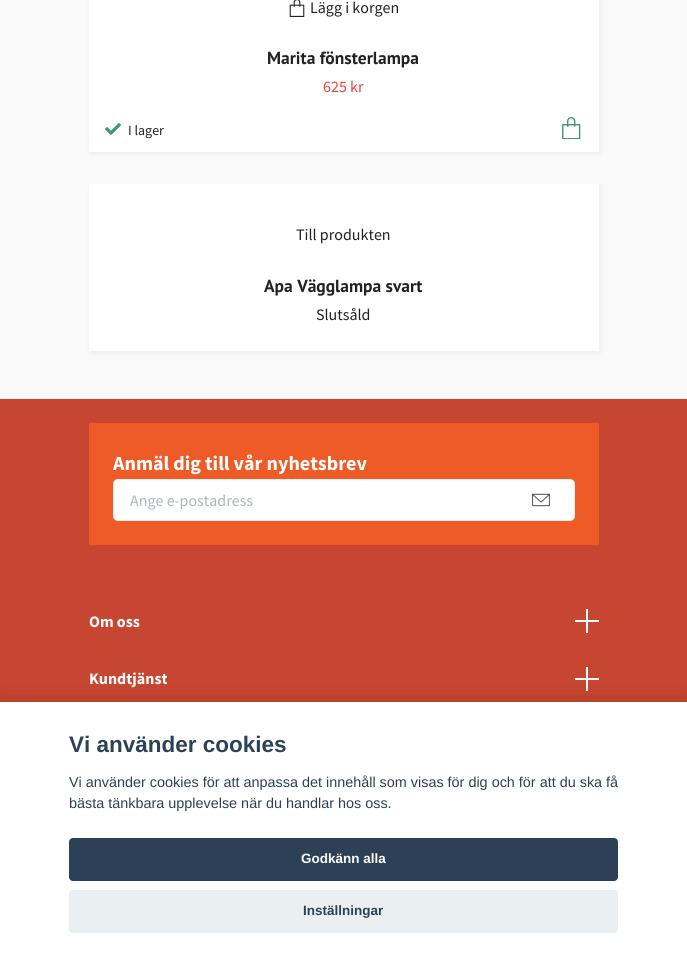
#include <cairo.h>
#include <math.h>
#include <stddef.h>

static cairo_t *ctx;

static void use_color(int r, int g, int b) {
    cairo_set_source_rgb(ctx, r / 255.0, g / 255.0, b / 255.0);
}

static void round_rect(double x, double y, double w, double h, double r) {
    cairo_new_sub_path(ctx);
    cairo_arc(ctx, x + w - r, y + h - r, r, 0, M_PI / 2);
    cairo_arc(ctx, x + r, y + h - r, r, M_PI / 2, M_PI);
    cairo_arc(ctx, x + r, y + r, r, M_PI, 1.5 * M_PI);
    cairo_arc(ctx, x + w - r, y + r, r, 1.5 * M_PI, 2 * M_PI);
    cairo_close_path(ctx);
}

static void shadow(double x, double y, double w, double h, double r, double blur, double alpha) {
    cairo_push_group_with_content(ctx, CAIRO_CONTENT_ALPHA);
    cairo_set_operator(ctx, CAIRO_OPERATOR_SOURCE);
    for (int i = 15; i >= -15 && fmin(w, h) + blur * i / 3 > 0; i -= 2) {
        double e = blur * i / 6;
        cairo_set_source_rgba(ctx, 0, 0, 0, alpha * erfc((i - 1) / 8.5) / 2);
        round_rect(x - e, y - e, w + 2 * e, h + 2 * e, fmax(0, fmin(r + e + blur * .6, fmin(w, h) / 2 + e)));
        cairo_fill(ctx);
    }
    cairo_pattern_t *soft = cairo_pop_group(ctx);
    cairo_mask(ctx, soft);
    cairo_pattern_destroy(soft);
}

static void picture(const char *path, double x, double y, double w, double h) {
    cairo_surface_t *image = cairo_image_surface_create_from_png(path);
    cairo_save(ctx);
    cairo_set_source_surface(ctx, image, x, y);
    cairo_rectangle(ctx, x, y, w, h);
    cairo_fill(ctx);
    cairo_restore(ctx);
    cairo_surface_destroy(image);
}

int main(void) {
    cairo_surface_t *surface = cairo_image_surface_create(CAIRO_FORMAT_RGB24, 687, 963);
    ctx = cairo_create(surface);
    cairo_font_options_t *options = cairo_font_options_create();
    cairo_font_options_set_hint_metrics(options, CAIRO_HINT_METRICS_OFF);
    cairo_font_options_set_hint_style(options, CAIRO_HINT_STYLE_NONE);
    cairo_set_font_options(ctx, options);
    cairo_set_miter_limit(ctx, 4);
    use_color(249, 249, 250);
    cairo_paint(ctx);
    use_color(0, 0, 0);
    shadow(90, -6, 510, 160, 0, 2, 0.05);
    use_color(255, 255, 255);
    cairo_rectangle(ctx, 89, 0, 510, 152);
    cairo_fill(ctx);
    picture("img1.png", 289, 0, 16, 17);
    cairo_select_font_face(ctx, "Source Sans Pro", CAIRO_FONT_SLANT_NORMAL, CAIRO_FONT_WEIGHT_NORMAL);
    cairo_set_font_size(ctx, 16);
    use_color(34, 34, 34);
    cairo_move_to(ctx, 310, 13);
    cairo_show_text(ctx, "Lägg i korgen");
    cairo_select_font_face(ctx, "PT Sans", CAIRO_FONT_SLANT_NORMAL, CAIRO_FONT_WEIGHT_BOLD);
    cairo_set_font_size(ctx, 17.5);
    cairo_move_to(ctx, 267, 64);
    cairo_show_text(ctx, "Marita fönsterlampa");
    cairo_select_font_face(ctx, "Source Sans Pro", CAIRO_FONT_SLANT_NORMAL, CAIRO_FONT_WEIGHT_NORMAL);
    cairo_set_font_size(ctx, 16);
    use_color(240, 63, 63);
    cairo_move_to(ctx, 323, 92);
    cairo_show_text(ctx, "625 kr");
    picture("img2.png", 105, 123, 16, 12);
    cairo_set_font_size(ctx, 14);
    use_color(34, 34, 34);
    cairo_move_to(ctx, 128, 135);
    cairo_show_text(ctx, "I lager");
    picture("img3.png", 562, 117, 19, 22);
    use_color(0, 0, 0);
    shadow(90, 186, 510, 167, 0, 2, 0.05);
    use_color(255, 255, 255);
    cairo_rectangle(ctx, 89, 184, 510, 167);
    cairo_fill(ctx);
    cairo_set_font_size(ctx, 16);
    use_color(34, 34, 34);
    cairo_move_to(ctx, 296, 240);
    cairo_show_text(ctx, "Till produkten");
    cairo_select_font_face(ctx, "PT Sans", CAIRO_FONT_SLANT_NORMAL, CAIRO_FONT_WEIGHT_BOLD);
    cairo_set_font_size(ctx, 17.5);
    cairo_move_to(ctx, 264, 292);
    cairo_show_text(ctx, "Apa Vägglampa svart");
    cairo_select_font_face(ctx, "Source Sans Pro", CAIRO_FONT_SLANT_NORMAL, CAIRO_FONT_WEIGHT_NORMAL);
    cairo_set_font_size(ctx, 16);
    cairo_move_to(ctx, 316, 320);
    cairo_show_text(ctx, "Slutsåld");
    use_color(199, 70, 49);
    cairo_rectangle(ctx, 0, 399, 687, 303);
    cairo_fill(ctx);
    use_color(239, 91, 39);
    cairo_rectangle(ctx, 89, 423, 510, 122);
    cairo_fill(ctx);
    cairo_select_font_face(ctx, "Source Sans Pro", CAIRO_FONT_SLANT_NORMAL, CAIRO_FONT_WEIGHT_BOLD);
    cairo_set_font_size(ctx, 20);
    use_color(255, 255, 255);
    cairo_move_to(ctx, 113, 470);
    cairo_show_text(ctx, "Anmäl dig till vår nyhetsbrev");
    round_rect(113, 479, 462, 42, 5);
    cairo_fill(ctx);
    round_rect(113.5, 479.5, 461, 41, 4.5);
    cairo_set_source_rgba(ctx, 0.133, 0.133, 0.133, 0.07);
    cairo_set_line_width(ctx, 1);
    cairo_stroke(ctx);
    cairo_select_font_face(ctx, "Source Sans Pro", CAIRO_FONT_SLANT_NORMAL, CAIRO_FONT_WEIGHT_NORMAL);
    cairo_set_font_size(ctx, 16);
    use_color(173, 181, 189);
    cairo_move_to(ctx, 130, 506);
    cairo_show_text(ctx, "Ange e-postadress");
    picture("img4.png", 532, 493, 18, 14);
    cairo_select_font_face(ctx, "Source Sans Pro", CAIRO_FONT_SLANT_NORMAL, CAIRO_FONT_WEIGHT_BOLD);
    use_color(255, 255, 255);
    cairo_move_to(ctx, 89, 627);
    cairo_show_text(ctx, "Om oss");
    cairo_rectangle(ctx, 586, 609, 2, 24);
    cairo_fill(ctx);
    cairo_rectangle(ctx, 575, 620, 24, 2);
    cairo_fill(ctx);
    cairo_move_to(ctx, 89, 684);
    cairo_show_text(ctx, "Kundtjänst");
    cairo_rectangle(ctx, 586, 667, 2, 24);
    cairo_fill(ctx);
    cairo_rectangle(ctx, 575, 678, 24, 2);
    cairo_fill(ctx);
    use_color(2, 2, 3);
    shadow(0, 712, 687, 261, 0, 15, 0.28);
    use_color(255, 255, 255);
    cairo_rectangle(ctx, 0, 702, 687, 261);
    cairo_fill(ctx);
    cairo_select_font_face(ctx, "Liberation Sans", CAIRO_FONT_SLANT_NORMAL, CAIRO_FONT_WEIGHT_BOLD);
    cairo_set_font_size(ctx, 22.5);
    use_color(45, 65, 86);
    cairo_move_to(ctx, 69, 752);
    cairo_show_text(ctx, "Vi använder cookies");
    cairo_select_font_face(ctx, "Liberation Sans", CAIRO_FONT_SLANT_NORMAL, CAIRO_FONT_WEIGHT_NORMAL);
    cairo_set_font_size(ctx, 14.4);
    cairo_move_to(ctx, 69, 787);
    cairo_show_text(ctx, "Vi använder cookies för att anpassa det innehåll som visas för dig och för att du ska få");
    cairo_move_to(ctx, 69, 808);
    cairo_show_text(ctx, "bästa tänkbara upplevelse när du handlar hos oss.");
    round_rect(69, 838, 549, 43, 4);
    cairo_fill(ctx);
    cairo_select_font_face(ctx, "Liberation Sans", CAIRO_FONT_SLANT_NORMAL, CAIRO_FONT_WEIGHT_BOLD);
    cairo_set_font_size(ctx, 13.5);
    use_color(255, 255, 255);
    cairo_move_to(ctx, 301, 863);
    cairo_show_text(ctx, "Godkänn alla");
    use_color(234, 239, 242);
    round_rect(69, 890, 549, 43, 4);
    cairo_fill(ctx);
    use_color(45, 65, 86);
    cairo_move_to(ctx, 303, 915);
    cairo_show_text(ctx, "Inställningar");
    cairo_surface_write_to_png(surface, "result.png");
    cairo_font_options_destroy(options);
    cairo_destroy(ctx);
    cairo_surface_destroy(surface);
    return 0;
}
